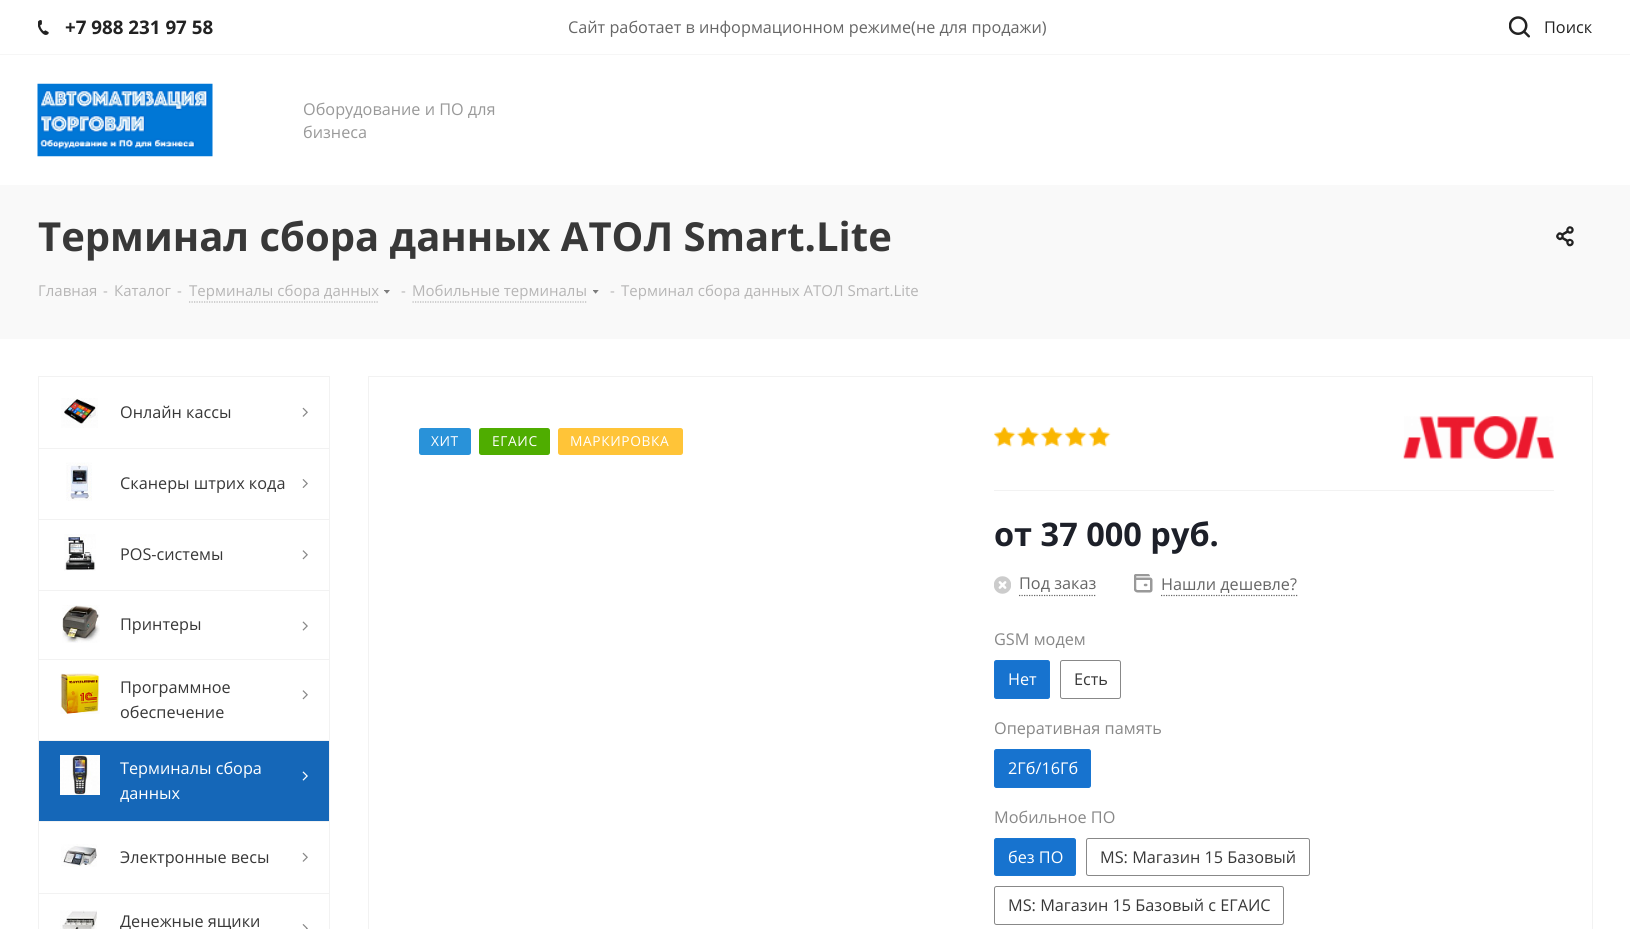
#include <cairo.h>
#include <math.h>
#include <stddef.h>

static cairo_t *ctx;

static void use_color(int r, int g, int b) {
    cairo_set_source_rgb(ctx, r / 255.0, g / 255.0, b / 255.0);
}

static void spaced_text(double x, double y, const char *s, double letter, double word) {
    cairo_move_to(ctx, x, y);
    while (*s) {
        char ch[5] = {0};
        int n = 0;
        do ch[n++] = *s++; while ((*s & 0xC0) == 0x80);
        cairo_show_text(ctx, ch);
        cairo_rel_move_to(ctx, letter + word * (*ch == ' '), 0);
    }
}

static void round_rect(double x, double y, double w, double h, double r) {
    cairo_new_sub_path(ctx);
    cairo_arc(ctx, x + w - r, y + h - r, r, 0, M_PI / 2);
    cairo_arc(ctx, x + r, y + h - r, r, M_PI / 2, M_PI);
    cairo_arc(ctx, x + r, y + r, r, M_PI, 1.5 * M_PI);
    cairo_arc(ctx, x + w - r, y + r, r, 1.5 * M_PI, 2 * M_PI);
    cairo_close_path(ctx);
}

static void picture(const char *path, double x, double y, double w, double h) {
    cairo_surface_t *image = cairo_image_surface_create_from_png(path);
    cairo_save(ctx);
    cairo_set_source_surface(ctx, image, x, y);
    cairo_rectangle(ctx, x, y, w, h);
    cairo_fill(ctx);
    cairo_restore(ctx);
    cairo_surface_destroy(image);
}

int main(void) {
    cairo_surface_t *surface = cairo_image_surface_create(CAIRO_FORMAT_RGB24, 1630, 929);
    ctx = cairo_create(surface);
    cairo_font_options_t *options = cairo_font_options_create();
    cairo_font_options_set_hint_metrics(options, CAIRO_HINT_METRICS_OFF);
    cairo_font_options_set_hint_style(options, CAIRO_HINT_STYLE_NONE);
    cairo_set_font_options(ctx, options);
    cairo_set_miter_limit(ctx, 4);
    use_color(255, 255, 255);
    cairo_paint(ctx);
    use_color(246, 246, 246);
    cairo_rectangle(ctx, 0, 54, 1630, 1);
    cairo_fill(ctx);
    picture("img1.png", 38, 20, 11, 15);
    cairo_select_font_face(ctx, "Open Sans", CAIRO_FONT_SLANT_NORMAL, CAIRO_FONT_WEIGHT_BOLD);
    cairo_set_font_size(ctx, 18.75);
    use_color(34, 34, 34);
    cairo_move_to(ctx, 65, 34);
    cairo_show_text(ctx, "+7 988 231 97 58");
    cairo_select_font_face(ctx, "Open Sans", CAIRO_FONT_SLANT_NORMAL, CAIRO_FONT_WEIGHT_NORMAL);
    cairo_set_font_size(ctx, 16.25);
    use_color(102, 102, 102);
    cairo_move_to(ctx, 568, 33);
    cairo_show_text(ctx, "Сайт работает в информационном режиме(не для продажи)");
    picture("img2.png", 1509, 16, 21, 22);
    use_color(34, 34, 34);
    cairo_move_to(ctx, 1544, 33);
    cairo_show_text(ctx, "Поиск");
    picture("img3.png", 37, 83, 176, 74);
    use_color(153, 153, 153);
    cairo_move_to(ctx, 303, 115);
    cairo_show_text(ctx, "Оборудование и ПО для");
    cairo_move_to(ctx, 303, 138);
    cairo_show_text(ctx, "бизнеса");
    use_color(249, 249, 249);
    cairo_rectangle(ctx, 0, 185, 1630, 154);
    cairo_fill(ctx);
    cairo_select_font_face(ctx, "Open Sans", CAIRO_FONT_SLANT_NORMAL, CAIRO_FONT_WEIGHT_BOLD);
    cairo_set_font_size(ctx, 40);
    use_color(56, 56, 56);
    cairo_move_to(ctx, 38, 251);
    cairo_show_text(ctx, "Терминал сбора данных АТОЛ Smart.Lite");
    picture("img4.png", 1556, 226, 18, 21);
    cairo_select_font_face(ctx, "Open Sans", CAIRO_FONT_SLANT_NORMAL, CAIRO_FONT_WEIGHT_NORMAL);
    cairo_set_font_size(ctx, 15);
    use_color(182, 181, 181);
    cairo_move_to(ctx, 38, 296);
    cairo_show_text(ctx, "Главная");
    cairo_move_to(ctx, 103, 296);
    cairo_show_text(ctx, "-");
    cairo_move_to(ctx, 114, 296);
    cairo_show_text(ctx, "Каталог");
    cairo_move_to(ctx, 177, 296);
    cairo_show_text(ctx, "-");
    cairo_move_to(ctx, 189, 296);
    cairo_show_text(ctx, "Терминалы сбора данных");
    cairo_new_path(ctx);
    cairo_move_to(ctx, 189, 302);
    cairo_line_to(ctx, 379, 302);
    use_color(180, 180, 180);
    cairo_set_line_width(ctx, 1.2);
    cairo_set_dash(ctx, (double[]){1.25, 1.25}, 2, 0);
    cairo_stroke(ctx);
    picture("img5.png", 384, 290, 6, 4);
    use_color(182, 181, 181);
    cairo_move_to(ctx, 401, 296);
    cairo_show_text(ctx, "-");
    cairo_move_to(ctx, 412, 296);
    cairo_show_text(ctx, "Мобильные терминалы");
    cairo_new_path(ctx);
    cairo_move_to(ctx, 412.5, 302);
    cairo_line_to(ctx, 587.5, 302);
    use_color(180, 180, 180);
    cairo_stroke(ctx);
    picture("img6.png", 593, 290, 6, 4);
    use_color(182, 181, 181);
    cairo_move_to(ctx, 610, 296);
    cairo_show_text(ctx, "-");
    cairo_move_to(ctx, 621, 296);
    cairo_show_text(ctx, "Терминал сбора данных АТОЛ Smart.Lite");
    use_color(242, 242, 242);
    cairo_rectangle(ctx, 38, 376, 292, 1);
    cairo_fill(ctx);
    cairo_rectangle(ctx, 329, 376, 1, 72);
    cairo_fill(ctx);
    cairo_rectangle(ctx, 38, 376, 1, 72);
    cairo_fill(ctx);
    picture("img7.png", 61, 398, 37, 30);
    cairo_set_font_size(ctx, 16.25);
    use_color(56, 56, 56);
    cairo_move_to(ctx, 120, 418);
    cairo_show_text(ctx, "Онлайн кассы");
    picture("img8.png", 302, 407, 6, 10);
    use_color(242, 242, 242);
    cairo_rectangle(ctx, 38, 448, 292, 1);
    cairo_fill(ctx);
    cairo_rectangle(ctx, 329, 448, 1, 71);
    cairo_fill(ctx);
    cairo_rectangle(ctx, 38, 448, 1, 71);
    cairo_fill(ctx);
    picture("img9.png", 66, 462, 26, 39);
    use_color(56, 56, 56);
    cairo_move_to(ctx, 120, 489);
    cairo_show_text(ctx, "Сканеры штрих кода");
    picture("img10.png", 302, 479, 6, 9);
    use_color(242, 242, 242);
    cairo_rectangle(ctx, 38, 519, 292, 1);
    cairo_fill(ctx);
    cairo_rectangle(ctx, 329, 519, 1, 71);
    cairo_fill(ctx);
    cairo_rectangle(ctx, 38, 519, 1, 71);
    cairo_fill(ctx);
    picture("img11.png", 64, 534, 32, 37);
    use_color(56, 56, 56);
    cairo_move_to(ctx, 120, 560);
    cairo_show_text(ctx, "POS-системы");
    picture("img12.png", 302, 550, 6, 10);
    use_color(242, 242, 242);
    cairo_rectangle(ctx, 38, 590, 292, 1);
    cairo_fill(ctx);
    cairo_rectangle(ctx, 329, 590, 1, 69);
    cairo_fill(ctx);
    cairo_rectangle(ctx, 38, 590, 1, 69);
    cairo_fill(ctx);
    picture("img13.png", 62, 605, 38, 38);
    use_color(56, 56, 56);
    cairo_move_to(ctx, 120, 630);
    cairo_show_text(ctx, "Принтеры");
    picture("img14.png", 302, 621, 6, 10);
    use_color(242, 242, 242);
    cairo_rectangle(ctx, 38, 659, 292, 1);
    cairo_fill(ctx);
    cairo_rectangle(ctx, 329, 659, 1, 81);
    cairo_fill(ctx);
    cairo_rectangle(ctx, 38, 659, 1, 81);
    cairo_fill(ctx);
    picture("img15.png", 60, 673, 40, 41);
    use_color(56, 56, 56);
    cairo_move_to(ctx, 120, 693);
    cairo_show_text(ctx, "Программное");
    cairo_move_to(ctx, 120, 718);
    cairo_show_text(ctx, "обеспечение");
    picture("img12.png", 302, 690, 6, 10);
    use_color(21, 103, 184);
    cairo_rectangle(ctx, 39, 741, 290, 80);
    cairo_fill(ctx);
    use_color(242, 242, 242);
    cairo_rectangle(ctx, 38, 740, 292, 1);
    cairo_fill(ctx);
    cairo_rectangle(ctx, 329, 740, 1, 81);
    cairo_fill(ctx);
    cairo_rectangle(ctx, 38, 740, 1, 81);
    cairo_fill(ctx);
    picture("img16.png", 60, 755, 40, 40);
    use_color(255, 255, 255);
    cairo_move_to(ctx, 120, 774);
    cairo_show_text(ctx, "Терминалы сбора");
    cairo_move_to(ctx, 120, 799);
    cairo_show_text(ctx, "данных");
    picture("img17.png", 302, 771, 6, 10);
    use_color(242, 242, 242);
    cairo_rectangle(ctx, 38, 821, 292, 1);
    cairo_fill(ctx);
    cairo_rectangle(ctx, 329, 821, 1, 72);
    cairo_fill(ctx);
    cairo_rectangle(ctx, 38, 821, 1, 72);
    cairo_fill(ctx);
    picture("img18.png", 61, 844, 36, 23);
    use_color(56, 56, 56);
    cairo_move_to(ctx, 120, 863);
    cairo_show_text(ctx, "Электронные весы");
    picture("img8.png", 302, 852, 6, 10);
    use_color(242, 242, 242);
    cairo_rectangle(ctx, 38, 893, 292, 1);
    cairo_fill(ctx);
    cairo_rectangle(ctx, 329, 893, 1, 36);
    cairo_fill(ctx);
    cairo_rectangle(ctx, 38, 893, 1, 36);
    cairo_fill(ctx);
    picture("img19.png", 60, 910, 37, 19);
    use_color(56, 56, 56);
    cairo_move_to(ctx, 120, 927);
    cairo_show_text(ctx, "Денежные ящики");
    picture("img20.png", 302, 924, 6, 5);
    cairo_rectangle(ctx, 368.5, 376.5, 1224, 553);
    use_color(242, 242, 242);
    cairo_set_line_width(ctx, 1);
    cairo_set_dash(ctx, NULL, 0, 0);
    cairo_stroke(ctx);
    use_color(41, 146, 217);
    round_rect(419, 428, 52, 27, 2.5);
    cairo_fill(ctx);
    cairo_set_font_size(ctx, 13.75);
    use_color(255, 255, 255);
    spaced_text(431, 446, "ХИТ", 0.6, 0);
    use_color(79, 173, 0);
    round_rect(479, 428, 71, 27, 2.5);
    cairo_fill(ctx);
    use_color(255, 255, 255);
    spaced_text(492, 446, "ЕГАИС", 0.6, 0);
    use_color(255, 196, 56);
    round_rect(558, 428, 125, 27, 2.5);
    cairo_fill(ctx);
    use_color(255, 255, 255);
    spaced_text(570, 446, "МАРКИРОВКА", 0.6, 0);
    use_color(242, 242, 242);
    cairo_rectangle(ctx, 994, 490, 560, 1);
    cairo_fill(ctx);
    picture("img21.png", 993, 427, 23, 20);
    picture("img22.png", 1017, 427, 22, 20);
    picture("img23.png", 1041, 427, 22, 20);
    picture("img24.png", 1065, 427, 22, 20);
    picture("img25.png", 1088, 427, 23, 20);
    picture("img26.png", 1403, 416, 151, 43);
    cairo_select_font_face(ctx, "Open Sans", CAIRO_FONT_SLANT_NORMAL, CAIRO_FONT_WEIGHT_BOLD);
    cairo_set_font_size(ctx, 32.5);
    use_color(29, 32, 41);
    cairo_move_to(ctx, 994, 546);
    cairo_show_text(ctx, "от 37 000 руб.");
    picture("img27.png", 994, 576, 17, 18);
    cairo_select_font_face(ctx, "Open Sans", CAIRO_FONT_SLANT_NORMAL, CAIRO_FONT_WEIGHT_NORMAL);
    cairo_set_font_size(ctx, 16.25);
    use_color(102, 102, 102);
    cairo_move_to(ctx, 1019, 589);
    cairo_show_text(ctx, "Под заказ");
    cairo_new_path(ctx);
    cairo_move_to(ctx, 1019, 595.5);
    cairo_line_to(ctx, 1096, 595.5);
    cairo_set_line_width(ctx, 1.2);
    cairo_set_dash(ctx, (double[]){1.25, 1.25}, 2, 0);
    cairo_stroke(ctx);
    picture("img28.png", 1134, 574, 19, 19);
    cairo_move_to(ctx, 1161, 590);
    cairo_show_text(ctx, "Нашли дешевле?");
    cairo_new_path(ctx);
    cairo_move_to(ctx, 1161, 595.5);
    cairo_line_to(ctx, 1297.5, 595.5);
    cairo_stroke(ctx);
    use_color(136, 136, 136);
    cairo_move_to(ctx, 994, 645);
    cairo_show_text(ctx, "GSM модем");
    use_color(23, 115, 207);
    round_rect(994.5, 660.5, 55, 38, 2);
    cairo_fill_preserve(ctx);
    use_color(25, 118, 210);
    cairo_set_line_width(ctx, 1);
    cairo_set_dash(ctx, NULL, 0, 0);
    cairo_stroke(ctx);
    use_color(255, 255, 255);
    cairo_move_to(ctx, 1008, 685);
    cairo_show_text(ctx, "Нет");
    round_rect(1060.5, 660.5, 60, 38, 2);
    use_color(136, 136, 136);
    cairo_stroke(ctx);
    use_color(56, 56, 56);
    cairo_move_to(ctx, 1074, 685);
    cairo_show_text(ctx, "Есть");
    use_color(136, 136, 136);
    cairo_move_to(ctx, 994, 734);
    cairo_show_text(ctx, "Оперативная память");
    use_color(23, 115, 207);
    round_rect(994.5, 749.5, 96, 38, 2);
    cairo_fill_preserve(ctx);
    use_color(25, 118, 210);
    cairo_stroke(ctx);
    use_color(255, 255, 255);
    cairo_move_to(ctx, 1008, 774);
    cairo_show_text(ctx, "2Гб/16Гб");
    use_color(136, 136, 136);
    cairo_move_to(ctx, 994, 823);
    cairo_show_text(ctx, "Мобильное ПО");
    use_color(23, 115, 207);
    round_rect(994.5, 838.5, 81, 37, 2);
    cairo_fill_preserve(ctx);
    use_color(25, 118, 210);
    cairo_stroke(ctx);
    use_color(255, 255, 255);
    cairo_move_to(ctx, 1008, 863);
    cairo_show_text(ctx, "без ПО");
    round_rect(1086.5, 838.5, 223, 37, 2);
    use_color(136, 136, 136);
    cairo_stroke(ctx);
    use_color(56, 56, 56);
    cairo_move_to(ctx, 1100, 863);
    cairo_show_text(ctx, "MS: Магазин 15 Базовый");
    round_rect(994.5, 886.5, 289, 38, 2);
    use_color(136, 136, 136);
    cairo_stroke(ctx);
    use_color(56, 56, 56);
    cairo_move_to(ctx, 1008, 911);
    cairo_show_text(ctx, "MS: Магазин 15 Базовый с ЕГАИС");
    cairo_surface_write_to_png(surface, "result.png");
    cairo_font_options_destroy(options);
    cairo_destroy(ctx);
    cairo_surface_destroy(surface);
    return 0;
}
